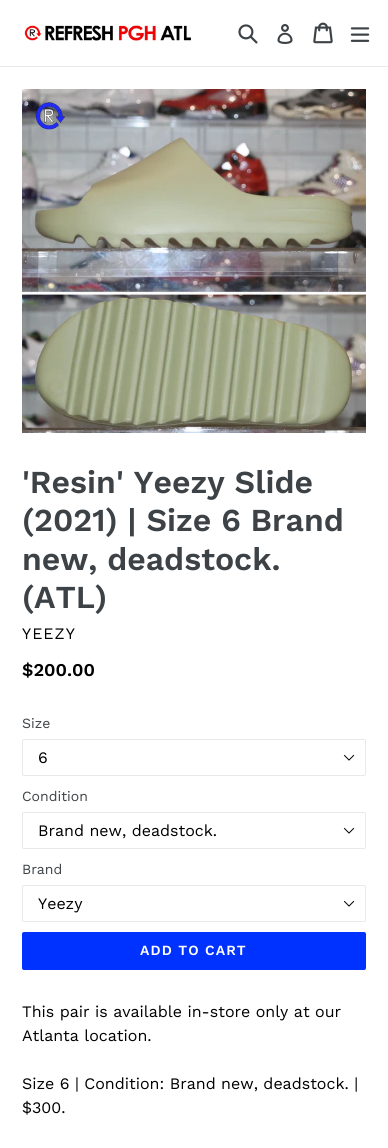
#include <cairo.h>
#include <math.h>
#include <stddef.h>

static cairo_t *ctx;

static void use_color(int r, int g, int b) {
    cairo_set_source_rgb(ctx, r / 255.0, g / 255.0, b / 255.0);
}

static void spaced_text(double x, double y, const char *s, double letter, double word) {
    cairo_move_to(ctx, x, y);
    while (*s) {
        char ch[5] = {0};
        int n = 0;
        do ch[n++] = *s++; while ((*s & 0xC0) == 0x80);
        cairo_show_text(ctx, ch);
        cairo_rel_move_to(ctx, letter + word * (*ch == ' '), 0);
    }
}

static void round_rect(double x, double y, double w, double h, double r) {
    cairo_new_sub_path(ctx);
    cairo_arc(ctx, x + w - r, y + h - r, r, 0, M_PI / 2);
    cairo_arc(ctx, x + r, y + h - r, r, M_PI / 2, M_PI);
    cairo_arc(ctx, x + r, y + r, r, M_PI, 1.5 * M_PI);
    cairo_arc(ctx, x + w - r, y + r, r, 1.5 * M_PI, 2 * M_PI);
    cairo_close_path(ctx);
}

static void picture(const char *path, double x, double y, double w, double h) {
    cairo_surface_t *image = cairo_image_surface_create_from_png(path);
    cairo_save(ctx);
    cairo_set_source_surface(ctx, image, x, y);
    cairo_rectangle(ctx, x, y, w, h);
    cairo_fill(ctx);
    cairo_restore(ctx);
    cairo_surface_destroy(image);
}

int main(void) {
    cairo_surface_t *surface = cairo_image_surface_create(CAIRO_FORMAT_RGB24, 388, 1148);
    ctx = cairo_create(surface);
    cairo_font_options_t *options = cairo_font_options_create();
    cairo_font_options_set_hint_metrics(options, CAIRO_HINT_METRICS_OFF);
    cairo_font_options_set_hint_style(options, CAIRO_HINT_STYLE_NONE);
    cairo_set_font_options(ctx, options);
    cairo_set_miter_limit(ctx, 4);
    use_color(255, 255, 255);
    cairo_paint(ctx);
    use_color(232, 233, 235);
    cairo_rectangle(ctx, 0, 66, 388, 1);
    cairo_fill(ctx);
    picture("img1.png", 24, 25, 167, 16);
    picture("img2.png", 238, 24, 20, 20);
    picture("img3.png", 277, 24, 16, 20);
    picture("img4.png", 313, 22, 20, 22);
    picture("img5.png", 350, 27, 20, 15);
    picture("img6.png", 22, 89, 344, 344);
    cairo_select_font_face(ctx, "Work Sans SemiBold", CAIRO_FONT_SLANT_NORMAL, CAIRO_FONT_WEIGHT_NORMAL);
    cairo_set_font_size(ctx, 32);
    use_color(61, 66, 70);
    cairo_move_to(ctx, 22, 493);
    cairo_show_text(ctx, "'Resin' Yeezy Slide");
    cairo_move_to(ctx, 22, 531);
    cairo_show_text(ctx, "(2021) | Size 6 Brand");
    cairo_move_to(ctx, 22, 570);
    cairo_show_text(ctx, "new, deadstock.");
    cairo_move_to(ctx, 22, 608);
    cairo_show_text(ctx, "(ATL)");
    cairo_select_font_face(ctx, "Work Sans", CAIRO_FONT_SLANT_NORMAL, CAIRO_FONT_WEIGHT_NORMAL);
    cairo_set_font_size(ctx, 16);
    use_color(0, 0, 0);
    spaced_text(22, 639, "YEEZY", 1, 0);
    cairo_select_font_face(ctx, "Work Sans SemiBold", CAIRO_FONT_SLANT_NORMAL, CAIRO_FONT_WEIGHT_NORMAL);
    cairo_set_font_size(ctx, 18);
    cairo_move_to(ctx, 22, 676);
    cairo_show_text(ctx, "$200.00");
    cairo_select_font_face(ctx, "Work Sans", CAIRO_FONT_SLANT_NORMAL, CAIRO_FONT_WEIGHT_NORMAL);
    cairo_set_font_size(ctx, 14);
    use_color(61, 66, 70);
    cairo_move_to(ctx, 22, 728);
    cairo_show_text(ctx, "Size");
    picture("img7.png", 343, 754, 12, 7);
    round_rect(22.5, 739.5, 343, 36, 1.5);
    use_color(232, 233, 235);
    cairo_set_line_width(ctx, 1);
    cairo_stroke(ctx);
    cairo_set_font_size(ctx, 16);
    use_color(0, 0, 0);
    cairo_move_to(ctx, 38, 763);
    cairo_show_text(ctx, "6");
    cairo_set_font_size(ctx, 14);
    use_color(61, 66, 70);
    cairo_move_to(ctx, 22, 801);
    cairo_show_text(ctx, "Condition");
    picture("img7.png", 343, 827, 12, 7);
    round_rect(22.5, 812.5, 343, 36, 1.5);
    use_color(232, 233, 235);
    cairo_stroke(ctx);
    cairo_set_font_size(ctx, 16);
    use_color(0, 0, 0);
    cairo_move_to(ctx, 38, 836);
    cairo_show_text(ctx, "Brand new, deadstock.");
    cairo_set_font_size(ctx, 14);
    use_color(61, 66, 70);
    cairo_move_to(ctx, 22, 874);
    cairo_show_text(ctx, "Brand");
    picture("img7.png", 343, 900, 12, 7);
    round_rect(22.5, 885.5, 343, 36, 1.5);
    use_color(232, 233, 235);
    cairo_stroke(ctx);
    cairo_set_font_size(ctx, 16);
    use_color(0, 0, 0);
    cairo_move_to(ctx, 38, 909);
    cairo_show_text(ctx, "Yeezy");
    use_color(0, 50, 255);
    round_rect(22, 932, 344, 38, 2);
    cairo_fill(ctx);
    cairo_select_font_face(ctx, "Work Sans SemiBold", CAIRO_FONT_SLANT_NORMAL, CAIRO_FONT_WEIGHT_NORMAL);
    cairo_set_font_size(ctx, 14);
    use_color(255, 255, 255);
    spaced_text(140, 955, "ADD TO CART", 1.1, 0);
    cairo_select_font_face(ctx, "Work Sans", CAIRO_FONT_SLANT_NORMAL, CAIRO_FONT_WEIGHT_NORMAL);
    cairo_set_font_size(ctx, 16);
    use_color(0, 0, 0);
    cairo_move_to(ctx, 22, 1017);
    cairo_show_text(ctx, "This pair is available in-store only at our");
    cairo_move_to(ctx, 22, 1041);
    cairo_show_text(ctx, "Atlanta location.");
    cairo_move_to(ctx, 22, 1089);
    cairo_show_text(ctx, "Size 6 | Condition: Brand new, deadstock. |");
    cairo_move_to(ctx, 22, 1113);
    cairo_show_text(ctx, "$300.");
    cairo_surface_write_to_png(surface, "result.png");
    cairo_font_options_destroy(options);
    cairo_destroy(ctx);
    cairo_surface_destroy(surface);
    return 0;
}
